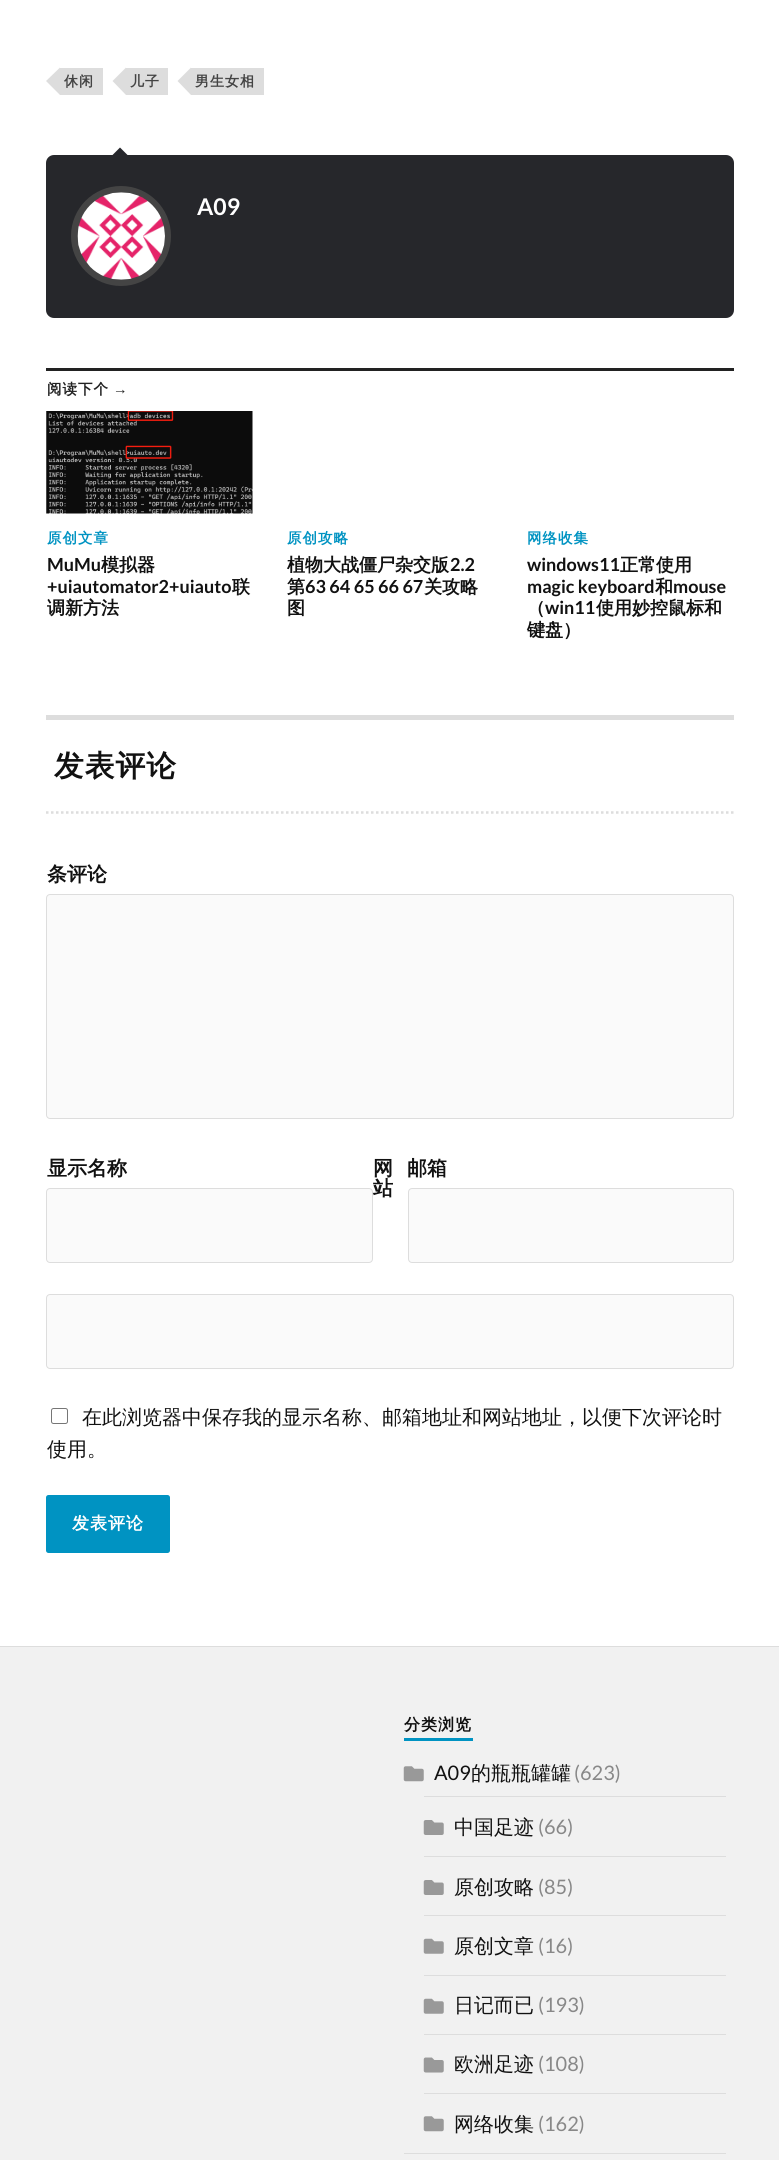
#include <cairo.h>
#include <math.h>
#include <stddef.h>

static cairo_t *ctx;

static void use_color(int r, int g, int b) {
    cairo_set_source_rgb(ctx, r / 255.0, g / 255.0, b / 255.0);
}

static void spaced_text(double x, double y, const char *s, double letter, double word) {
    cairo_move_to(ctx, x, y);
    while (*s) {
        char ch[5] = {0};
        int n = 0;
        do ch[n++] = *s++; while ((*s & 0xC0) == 0x80);
        cairo_show_text(ctx, ch);
        cairo_rel_move_to(ctx, letter + word * (*ch == ' '), 0);
    }
}

static void round_rect(double x, double y, double w, double h, double r) {
    cairo_new_sub_path(ctx);
    cairo_arc(ctx, x + w - r, y + h - r, r, 0, M_PI / 2);
    cairo_arc(ctx, x + r, y + h - r, r, M_PI / 2, M_PI);
    cairo_arc(ctx, x + r, y + r, r, M_PI, 1.5 * M_PI);
    cairo_arc(ctx, x + w - r, y + r, r, 1.5 * M_PI, 2 * M_PI);
    cairo_close_path(ctx);
}

static void picture(const char *path, double x, double y, double w, double h) {
    cairo_surface_t *image = cairo_image_surface_create_from_png(path);
    cairo_save(ctx);
    cairo_set_source_surface(ctx, image, x, y);
    cairo_rectangle(ctx, x, y, w, h);
    cairo_fill(ctx);
    cairo_restore(ctx);
    cairo_surface_destroy(image);
}

int main(void) {
    cairo_surface_t *surface = cairo_image_surface_create(CAIRO_FORMAT_RGB24, 779, 2160);
    ctx = cairo_create(surface);
    cairo_font_options_t *options = cairo_font_options_create();
    cairo_font_options_set_hint_metrics(options, CAIRO_HINT_METRICS_OFF);
    cairo_font_options_set_hint_style(options, CAIRO_HINT_STYLE_NONE);
    cairo_set_font_options(ctx, options);
    cairo_set_miter_limit(ctx, 4);
    use_color(255, 255, 255);
    cairo_paint(ctx);
    use_color(221, 221, 221);
    cairo_rectangle(ctx, 60, 68, 43, 27);
    cairo_fill(ctx);
    cairo_new_path(ctx);
    cairo_move_to(ctx, 60, 67.5);
    cairo_line_to(ctx, 60, 95);
    cairo_line_to(ctx, 46, 81);
    cairo_close_path(ctx);
    cairo_fill(ctx);
    cairo_select_font_face(ctx, "WenQuanYi Zen Hei", CAIRO_FONT_SLANT_NORMAL, CAIRO_FONT_WEIGHT_BOLD);
    cairo_set_font_size(ctx, 14);
    use_color(68, 68, 68);
    spaced_text(64, 86, "休闲", 1, 0);
    use_color(221, 221, 221);
    cairo_rectangle(ctx, 126, 68, 42, 27);
    cairo_fill(ctx);
    cairo_new_path(ctx);
    cairo_move_to(ctx, 126, 67.5);
    cairo_line_to(ctx, 126, 95);
    cairo_line_to(ctx, 112.5, 81);
    cairo_close_path(ctx);
    cairo_fill(ctx);
    use_color(68, 68, 68);
    spaced_text(130, 86, "儿子", 1, 0);
    use_color(221, 221, 221);
    cairo_rectangle(ctx, 191, 68, 73, 27);
    cairo_fill(ctx);
    cairo_new_path(ctx);
    cairo_move_to(ctx, 191, 67.5);
    cairo_line_to(ctx, 191, 95);
    cairo_line_to(ctx, 177.5, 81);
    cairo_close_path(ctx);
    cairo_fill(ctx);
    use_color(68, 68, 68);
    spaced_text(195, 86, "男生女相", 1, 0);
    use_color(38, 39, 43);
    round_rect(46, 155, 688, 163, 8);
    cairo_fill(ctx);
    use_color(37, 38, 43);
    cairo_new_path(ctx);
    cairo_move_to(ctx, 127.5, 155);
    cairo_line_to(ctx, 112.5, 155);
    cairo_line_to(ctx, 120, 147.5);
    cairo_close_path(ctx);
    cairo_fill(ctx);
    use_color(68, 68, 68);
    cairo_arc(ctx, 121, 236, 50, 0, 2 * M_PI);
    cairo_fill(ctx);
    picture("img1.png", 77, 192, 88, 88);
    cairo_select_font_face(ctx, "Lato", CAIRO_FONT_SLANT_NORMAL, CAIRO_FONT_WEIGHT_BOLD);
    cairo_set_font_size(ctx, 23);
    use_color(255, 255, 255);
    cairo_move_to(ctx, 197, 215);
    cairo_show_text(ctx, "A09");
    use_color(34, 34, 34);
    cairo_rectangle(ctx, 46, 368, 688, 3);
    cairo_fill(ctx);
    cairo_select_font_face(ctx, "WenQuanYi Zen Hei", CAIRO_FONT_SLANT_NORMAL, CAIRO_FONT_WEIGHT_BOLD);
    cairo_set_font_size(ctx, 14.5);
    spaced_text(47, 394, "阅读下个", 1, 0);
    cairo_select_font_face(ctx, "Liberation Sans", CAIRO_FONT_SLANT_NORMAL, CAIRO_FONT_WEIGHT_BOLD);
    spaced_text(113, 394, "→", 1, 0);
    picture("img2.png", 46, 411, 207, 103);
    cairo_select_font_face(ctx, "WenQuanYi Zen Hei", CAIRO_FONT_SLANT_NORMAL, CAIRO_FONT_WEIGHT_BOLD);
    use_color(0, 147, 194);
    spaced_text(47, 543, "原创文章", 1, 0);
    cairo_select_font_face(ctx, "Lato", CAIRO_FONT_SLANT_NORMAL, CAIRO_FONT_WEIGHT_BOLD);
    cairo_set_font_size(ctx, 18);
    use_color(17, 17, 17);
    cairo_move_to(ctx, 47, 571);
    cairo_show_text(ctx, "MuMu");
    cairo_select_font_face(ctx, "WenQuanYi Zen Hei", CAIRO_FONT_SLANT_NORMAL, CAIRO_FONT_WEIGHT_BOLD);
    cairo_move_to(ctx, 101, 571);
    cairo_show_text(ctx, "模拟器");
    cairo_select_font_face(ctx, "Lato", CAIRO_FONT_SLANT_NORMAL, CAIRO_FONT_WEIGHT_BOLD);
    cairo_move_to(ctx, 47, 593);
    cairo_show_text(ctx, "+uiautomator2+uiauto");
    cairo_select_font_face(ctx, "WenQuanYi Zen Hei", CAIRO_FONT_SLANT_NORMAL, CAIRO_FONT_WEIGHT_BOLD);
    cairo_move_to(ctx, 232, 593);
    cairo_show_text(ctx, "联");
    cairo_move_to(ctx, 47, 614);
    cairo_show_text(ctx, "调新方法");
    cairo_set_font_size(ctx, 14.5);
    use_color(0, 147, 194);
    spaced_text(287, 543, "原创攻略", 1, 0);
    cairo_set_font_size(ctx, 18);
    use_color(17, 17, 17);
    cairo_move_to(ctx, 287, 571);
    cairo_show_text(ctx, "植物大战僵尸杂交版");
    cairo_select_font_face(ctx, "Lato", CAIRO_FONT_SLANT_NORMAL, CAIRO_FONT_WEIGHT_BOLD);
    cairo_move_to(ctx, 450, 571);
    cairo_show_text(ctx, "2.2");
    cairo_select_font_face(ctx, "WenQuanYi Zen Hei", CAIRO_FONT_SLANT_NORMAL, CAIRO_FONT_WEIGHT_BOLD);
    cairo_move_to(ctx, 287, 593);
    cairo_show_text(ctx, "第");
    cairo_select_font_face(ctx, "Lato", CAIRO_FONT_SLANT_NORMAL, CAIRO_FONT_WEIGHT_BOLD);
    cairo_move_to(ctx, 305, 593);
    cairo_show_text(ctx, "63 64 65 66 67");
    cairo_select_font_face(ctx, "WenQuanYi Zen Hei", CAIRO_FONT_SLANT_NORMAL, CAIRO_FONT_WEIGHT_BOLD);
    cairo_move_to(ctx, 424, 593);
    cairo_show_text(ctx, "关攻略");
    cairo_move_to(ctx, 287, 614);
    cairo_show_text(ctx, "图");
    cairo_set_font_size(ctx, 14.5);
    use_color(0, 147, 194);
    spaced_text(527, 543, "网络收集", 1, 0);
    cairo_select_font_face(ctx, "Lato", CAIRO_FONT_SLANT_NORMAL, CAIRO_FONT_WEIGHT_BOLD);
    cairo_set_font_size(ctx, 18);
    use_color(17, 17, 17);
    cairo_move_to(ctx, 527, 571);
    cairo_show_text(ctx, "windows11");
    cairo_select_font_face(ctx, "WenQuanYi Zen Hei", CAIRO_FONT_SLANT_NORMAL, CAIRO_FONT_WEIGHT_BOLD);
    cairo_move_to(ctx, 620, 571);
    cairo_show_text(ctx, "正常使用");
    cairo_select_font_face(ctx, "Lato", CAIRO_FONT_SLANT_NORMAL, CAIRO_FONT_WEIGHT_BOLD);
    cairo_move_to(ctx, 527, 593);
    cairo_show_text(ctx, "magic keyboard");
    cairo_select_font_face(ctx, "WenQuanYi Zen Hei", CAIRO_FONT_SLANT_NORMAL, CAIRO_FONT_WEIGHT_BOLD);
    cairo_move_to(ctx, 655, 593);
    cairo_show_text(ctx, "和");
    cairo_select_font_face(ctx, "Lato", CAIRO_FONT_SLANT_NORMAL, CAIRO_FONT_WEIGHT_BOLD);
    cairo_move_to(ctx, 673, 593);
    cairo_show_text(ctx, "mouse");
    cairo_select_font_face(ctx, "WenQuanYi Zen Hei", CAIRO_FONT_SLANT_NORMAL, CAIRO_FONT_WEIGHT_BOLD);
    cairo_move_to(ctx, 527, 614);
    cairo_show_text(ctx, "（");
    cairo_select_font_face(ctx, "Lato", CAIRO_FONT_SLANT_NORMAL, CAIRO_FONT_WEIGHT_BOLD);
    cairo_move_to(ctx, 545, 614);
    cairo_show_text(ctx, "win11");
    cairo_select_font_face(ctx, "WenQuanYi Zen Hei", CAIRO_FONT_SLANT_NORMAL, CAIRO_FONT_WEIGHT_BOLD);
    cairo_move_to(ctx, 596, 614);
    cairo_show_text(ctx, "使用妙控鼠标和");
    cairo_move_to(ctx, 527, 636);
    cairo_show_text(ctx, "键盘）");
    use_color(221, 221, 221);
    cairo_rectangle(ctx, 46, 715, 688, 5);
    cairo_fill(ctx);
    cairo_new_path(ctx);
    cairo_move_to(ctx, 46, 812.5);
    cairo_line_to(ctx, 734, 812.5);
    cairo_set_line_width(ctx, 2.5);
    cairo_set_dash(ctx, (double[]){2.5, 2.5}, 2, 0);
    cairo_stroke(ctx);
    cairo_set_font_size(ctx, 29.75);
    use_color(17, 17, 17);
    spaced_text(54, 776, "发表评论", 1, 0);
    cairo_set_font_size(ctx, 20);
    cairo_move_to(ctx, 47, 881);
    cairo_show_text(ctx, "条评论");
    use_color(250, 250, 250);
    round_rect(46.5, 894.5, 687, 224, 3.5);
    cairo_fill_preserve(ctx);
    use_color(221, 221, 221);
    cairo_set_line_width(ctx, 1);
    cairo_set_dash(ctx, NULL, 0, 0);
    cairo_stroke(ctx);
    use_color(17, 17, 17);
    cairo_move_to(ctx, 47, 1175);
    cairo_show_text(ctx, "显示名称");
    use_color(250, 250, 250);
    round_rect(46.5, 1188.5, 326, 74, 3.5);
    cairo_fill_preserve(ctx);
    use_color(221, 221, 221);
    cairo_stroke(ctx);
    use_color(17, 17, 17);
    cairo_move_to(ctx, 373, 1175);
    cairo_show_text(ctx, "网");
    cairo_move_to(ctx, 373, 1195);
    cairo_show_text(ctx, "站");
    use_color(250, 250, 250);
    round_rect(46.5, 1294.5, 687, 74, 3.5);
    cairo_fill_preserve(ctx);
    use_color(221, 221, 221);
    cairo_stroke(ctx);
    use_color(17, 17, 17);
    cairo_move_to(ctx, 407, 1175);
    cairo_show_text(ctx, "邮箱");
    use_color(250, 250, 250);
    round_rect(408.5, 1188.5, 325, 74, 3.5);
    cairo_fill_preserve(ctx);
    use_color(221, 221, 221);
    cairo_stroke(ctx);
    round_rect(51.5, 1408.5, 16, 15, 2);
    use_color(118, 118, 118);
    cairo_stroke(ctx);
    cairo_select_font_face(ctx, "WenQuanYi Zen Hei Medium", CAIRO_FONT_SLANT_NORMAL, CAIRO_FONT_WEIGHT_NORMAL);
    use_color(17, 17, 17);
    cairo_move_to(ctx, 82, 1424);
    cairo_show_text(ctx, "在此浏览器中保存我的显示名称、邮箱地址和网站地址，以便下次评论时");
    cairo_move_to(ctx, 47, 1456);
    cairo_show_text(ctx, "使用。");
    use_color(0, 147, 194);
    round_rect(46, 1495, 124, 58, 2.5);
    cairo_fill(ctx);
    cairo_select_font_face(ctx, "WenQuanYi Zen Hei", CAIRO_FONT_SLANT_NORMAL, CAIRO_FONT_WEIGHT_BOLD);
    cairo_set_font_size(ctx, 17);
    use_color(255, 255, 255);
    spaced_text(72, 1529, "发表评论", 1, 0);
    use_color(241, 241, 241);
    cairo_rectangle(ctx, 0, 1647, 779, 513);
    cairo_fill(ctx);
    use_color(221, 221, 221);
    cairo_rectangle(ctx, 0, 1646, 779, 1);
    cairo_fill(ctx);
    use_color(0, 147, 194);
    cairo_rectangle(ctx, 404, 1738, 69, 3);
    cairo_fill(ctx);
    cairo_set_font_size(ctx, 16);
    use_color(17, 17, 17);
    spaced_text(404, 1730, "分类浏览", 1, 0);
    use_color(221, 221, 221);
    cairo_rectangle(ctx, 404, 2153, 322, 1);
    cairo_fill(ctx);
    picture("img3.png", 403, 1766, 21, 16);
    cairo_select_font_face(ctx, "Lato", CAIRO_FONT_SLANT_NORMAL, CAIRO_FONT_WEIGHT_NORMAL);
    cairo_set_font_size(ctx, 20);
    use_color(17, 17, 17);
    cairo_move_to(ctx, 434, 1780);
    cairo_show_text(ctx, "A09");
    cairo_select_font_face(ctx, "WenQuanYi Zen Hei Medium", CAIRO_FONT_SLANT_NORMAL, CAIRO_FONT_WEIGHT_NORMAL);
    cairo_move_to(ctx, 471, 1780);
    cairo_show_text(ctx, "的瓶瓶罐罐");
    cairo_select_font_face(ctx, "Lato", CAIRO_FONT_SLANT_NORMAL, CAIRO_FONT_WEIGHT_NORMAL);
    use_color(136, 136, 136);
    cairo_move_to(ctx, 574, 1780);
    cairo_show_text(ctx, "(623)");
    use_color(221, 221, 221);
    cairo_rectangle(ctx, 424, 1796, 302, 1);
    cairo_fill(ctx);
    cairo_rectangle(ctx, 424, 1856, 302, 1);
    cairo_fill(ctx);
    picture("img4.png", 423, 1820, 21, 15);
    cairo_select_font_face(ctx, "WenQuanYi Zen Hei Medium", CAIRO_FONT_SLANT_NORMAL, CAIRO_FONT_WEIGHT_NORMAL);
    use_color(17, 17, 17);
    cairo_move_to(ctx, 454, 1834);
    cairo_show_text(ctx, "中国足迹");
    cairo_select_font_face(ctx, "Lato", CAIRO_FONT_SLANT_NORMAL, CAIRO_FONT_WEIGHT_NORMAL);
    use_color(136, 136, 136);
    cairo_move_to(ctx, 538, 1834);
    cairo_show_text(ctx, "(66)");
    use_color(221, 221, 221);
    cairo_rectangle(ctx, 424, 1915, 302, 1);
    cairo_fill(ctx);
    picture("img4.png", 423, 1880, 21, 15);
    cairo_select_font_face(ctx, "WenQuanYi Zen Hei Medium", CAIRO_FONT_SLANT_NORMAL, CAIRO_FONT_WEIGHT_NORMAL);
    use_color(17, 17, 17);
    cairo_move_to(ctx, 454, 1894);
    cairo_show_text(ctx, "原创攻略");
    cairo_select_font_face(ctx, "Lato", CAIRO_FONT_SLANT_NORMAL, CAIRO_FONT_WEIGHT_NORMAL);
    use_color(136, 136, 136);
    cairo_move_to(ctx, 538, 1894);
    cairo_show_text(ctx, "(85)");
    use_color(221, 221, 221);
    cairo_rectangle(ctx, 424, 1975, 302, 1);
    cairo_fill(ctx);
    picture("img5.png", 423, 1938, 21, 16);
    cairo_select_font_face(ctx, "WenQuanYi Zen Hei Medium", CAIRO_FONT_SLANT_NORMAL, CAIRO_FONT_WEIGHT_NORMAL);
    use_color(17, 17, 17);
    cairo_move_to(ctx, 454, 1953);
    cairo_show_text(ctx, "原创文章");
    cairo_select_font_face(ctx, "Lato", CAIRO_FONT_SLANT_NORMAL, CAIRO_FONT_WEIGHT_NORMAL);
    use_color(136, 136, 136);
    cairo_move_to(ctx, 538, 1953);
    cairo_show_text(ctx, "(16)");
    use_color(221, 221, 221);
    cairo_rectangle(ctx, 424, 2034, 302, 1);
    cairo_fill(ctx);
    picture("img5.png", 423, 1998, 21, 16);
    cairo_select_font_face(ctx, "WenQuanYi Zen Hei Medium", CAIRO_FONT_SLANT_NORMAL, CAIRO_FONT_WEIGHT_NORMAL);
    use_color(17, 17, 17);
    cairo_move_to(ctx, 454, 2012);
    cairo_show_text(ctx, "日记而已");
    cairo_select_font_face(ctx, "Lato", CAIRO_FONT_SLANT_NORMAL, CAIRO_FONT_WEIGHT_NORMAL);
    use_color(136, 136, 136);
    cairo_move_to(ctx, 538, 2012);
    cairo_show_text(ctx, "(193)");
    use_color(221, 221, 221);
    cairo_rectangle(ctx, 424, 2093, 302, 1);
    cairo_fill(ctx);
    picture("img6.png", 423, 2057, 21, 16);
    cairo_select_font_face(ctx, "WenQuanYi Zen Hei Medium", CAIRO_FONT_SLANT_NORMAL, CAIRO_FONT_WEIGHT_NORMAL);
    use_color(17, 17, 17);
    cairo_move_to(ctx, 454, 2071);
    cairo_show_text(ctx, "欧洲足迹");
    cairo_select_font_face(ctx, "Lato", CAIRO_FONT_SLANT_NORMAL, CAIRO_FONT_WEIGHT_NORMAL);
    use_color(136, 136, 136);
    cairo_move_to(ctx, 538, 2071);
    cairo_show_text(ctx, "(108)");
    picture("img3.png", 423, 2116, 21, 16);
    cairo_select_font_face(ctx, "WenQuanYi Zen Hei Medium", CAIRO_FONT_SLANT_NORMAL, CAIRO_FONT_WEIGHT_NORMAL);
    use_color(17, 17, 17);
    cairo_move_to(ctx, 454, 2131);
    cairo_show_text(ctx, "网络收集");
    cairo_select_font_face(ctx, "Lato", CAIRO_FONT_SLANT_NORMAL, CAIRO_FONT_WEIGHT_NORMAL);
    use_color(136, 136, 136);
    cairo_move_to(ctx, 538, 2131);
    cairo_show_text(ctx, "(162)");
    cairo_surface_write_to_png(surface, "result.png");
    cairo_font_options_destroy(options);
    cairo_destroy(ctx);
    cairo_surface_destroy(surface);
    return 0;
}
